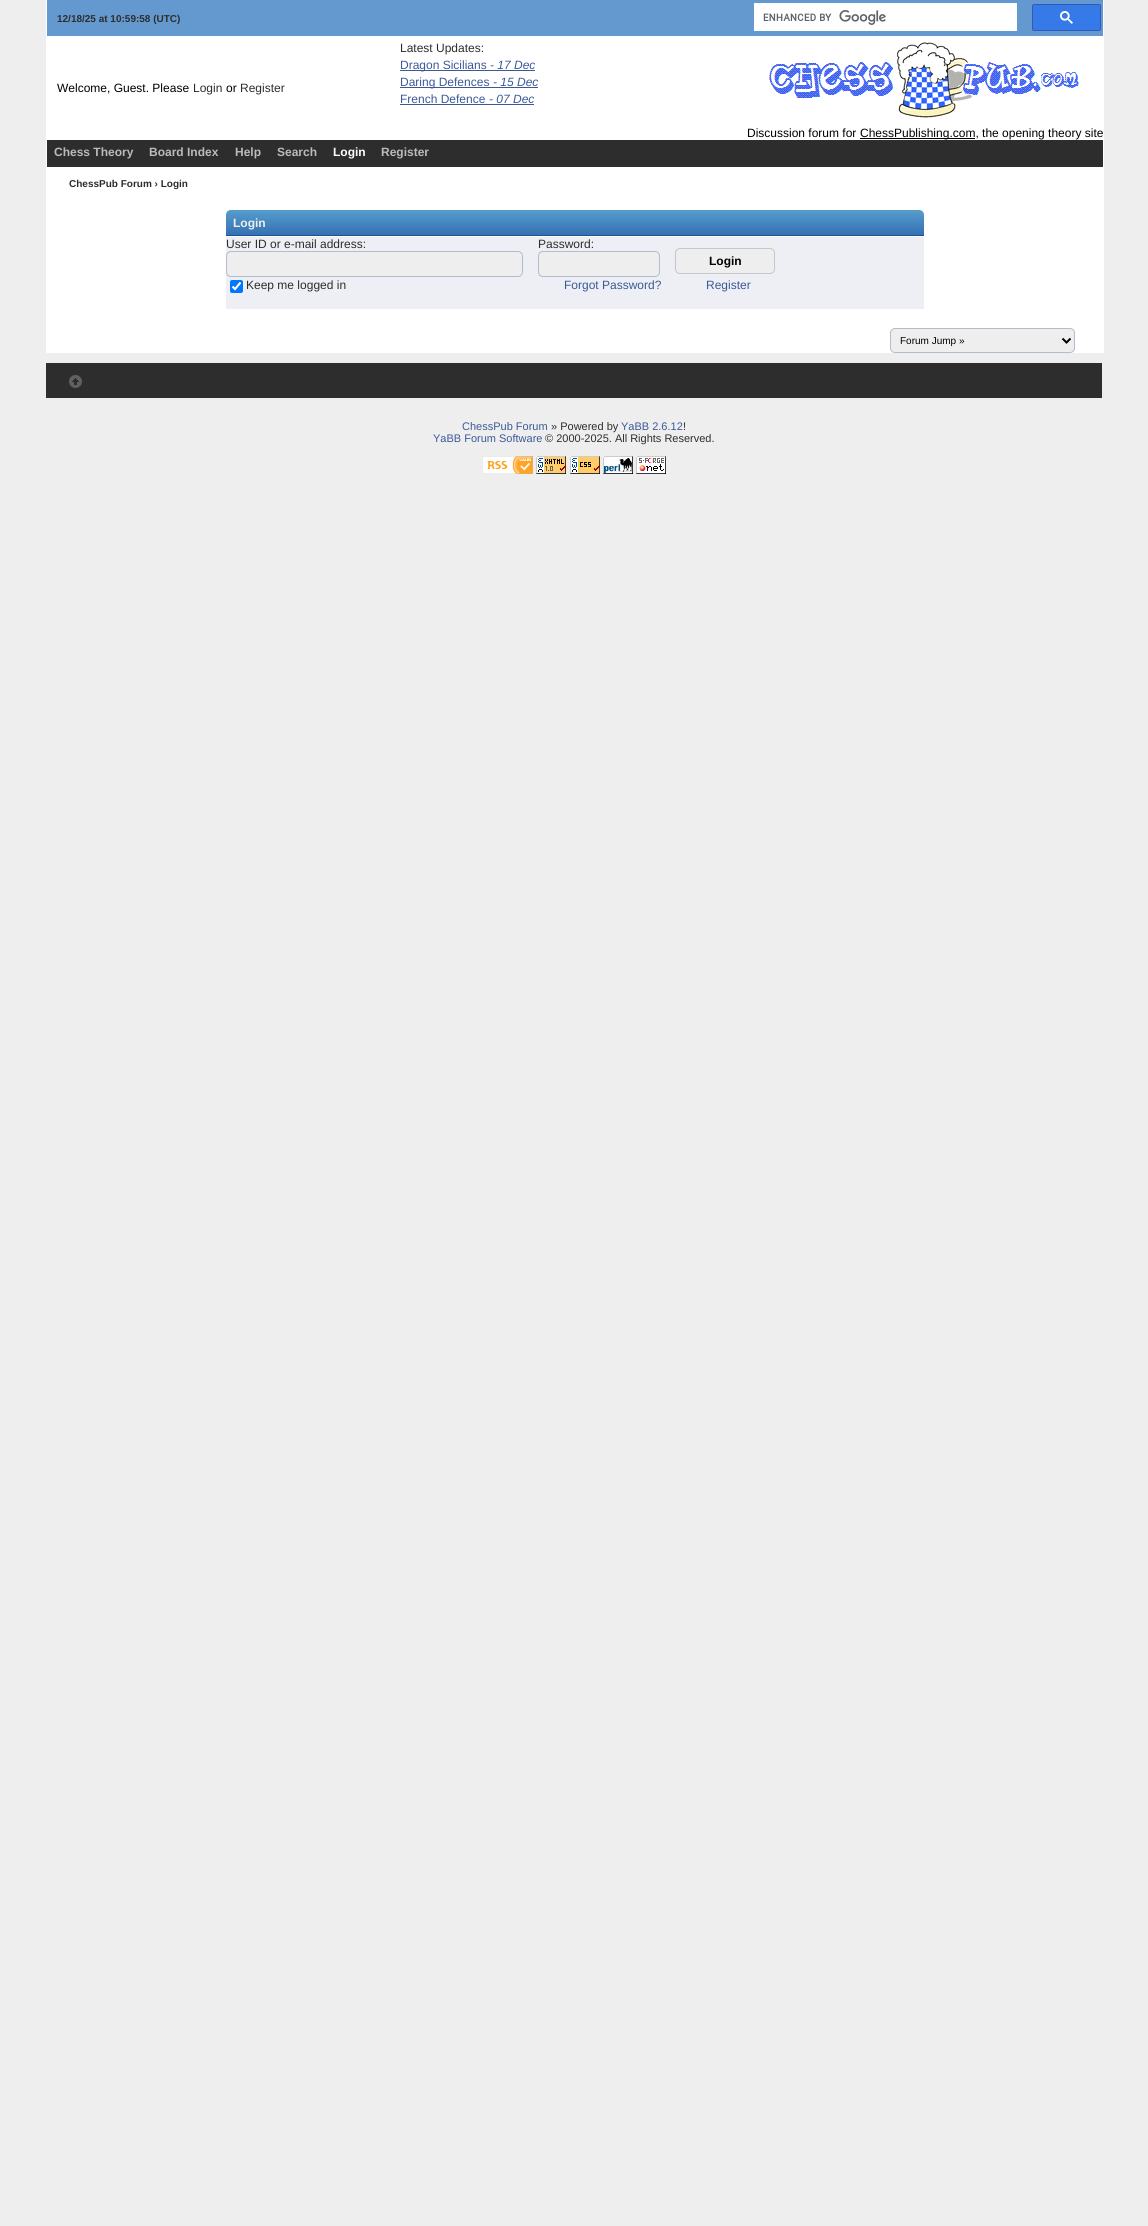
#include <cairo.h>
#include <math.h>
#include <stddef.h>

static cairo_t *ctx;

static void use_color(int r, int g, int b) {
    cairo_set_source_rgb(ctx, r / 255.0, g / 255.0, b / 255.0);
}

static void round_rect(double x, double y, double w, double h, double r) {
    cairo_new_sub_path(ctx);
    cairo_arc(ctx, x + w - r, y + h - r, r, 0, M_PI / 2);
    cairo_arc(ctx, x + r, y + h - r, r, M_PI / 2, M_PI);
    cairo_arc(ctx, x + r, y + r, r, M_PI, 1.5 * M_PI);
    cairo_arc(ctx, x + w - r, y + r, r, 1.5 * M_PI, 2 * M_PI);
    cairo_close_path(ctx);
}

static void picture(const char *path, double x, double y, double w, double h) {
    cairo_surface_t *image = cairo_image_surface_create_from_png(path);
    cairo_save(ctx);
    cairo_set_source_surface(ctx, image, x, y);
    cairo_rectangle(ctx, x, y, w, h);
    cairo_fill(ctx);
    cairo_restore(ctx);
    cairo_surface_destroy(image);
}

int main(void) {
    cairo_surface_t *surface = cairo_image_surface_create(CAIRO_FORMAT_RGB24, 1148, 2226);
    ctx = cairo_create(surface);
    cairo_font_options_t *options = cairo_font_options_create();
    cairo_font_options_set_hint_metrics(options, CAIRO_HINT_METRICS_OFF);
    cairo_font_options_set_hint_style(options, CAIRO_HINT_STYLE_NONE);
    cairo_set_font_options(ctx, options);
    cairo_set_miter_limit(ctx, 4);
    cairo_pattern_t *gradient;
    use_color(238, 238, 238);
    cairo_paint(ctx);
    use_color(255, 255, 255);
    cairo_rectangle(ctx, 46, 0, 1058, 353);
    cairo_fill(ctx);
    use_color(100, 153, 208);
    cairo_rectangle(ctx, 47, 0, 1056, 36);
    cairo_fill(ctx);
    cairo_select_font_face(ctx, "Liberation Sans", CAIRO_FONT_SLANT_NORMAL, CAIRO_FONT_WEIGHT_BOLD);
    cairo_set_font_size(ctx, 10);
    use_color(45, 45, 45);
    cairo_move_to(ctx, 57, 22);
    cairo_show_text(ctx, "12/18/25 at 10:59:58 (UTC)");
    use_color(255, 255, 255);
    cairo_rectangle(ctx, 754, 3, 263, 28);
    cairo_fill(ctx);
    picture("img1.png", 763, 10, 123, 15);
    use_color(53, 122, 232);
    round_rect(1032.5, 4.5, 68, 26, 1.5);
    cairo_fill_preserve(ctx);
    use_color(47, 91, 183);
    cairo_set_line_width(ctx, 1);
    cairo_stroke(ctx);
    picture("img2.png", 1060, 11, 13, 13);
    cairo_select_font_face(ctx, "Liberation Sans", CAIRO_FONT_SLANT_NORMAL, CAIRO_FONT_WEIGHT_NORMAL);
    cairo_set_font_size(ctx, 12);
    use_color(45, 45, 45);
    cairo_move_to(ctx, 400, 52);
    cairo_show_text(ctx, "Latest Updates:");
    use_color(59, 89, 152);
    cairo_rectangle(ctx, 400, 70, 135, 1);
    cairo_fill(ctx);
    cairo_move_to(ctx, 400, 69);
    cairo_show_text(ctx, "Dragon Sicilians");
    cairo_select_font_face(ctx, "Liberation Sans", CAIRO_FONT_SLANT_ITALIC, CAIRO_FONT_WEIGHT_NORMAL);
    cairo_move_to(ctx, 490, 69);
    cairo_show_text(ctx, "- 17 Dec");
    cairo_rectangle(ctx, 400, 87, 138, 1);
    cairo_fill(ctx);
    cairo_select_font_face(ctx, "Liberation Sans", CAIRO_FONT_SLANT_NORMAL, CAIRO_FONT_WEIGHT_NORMAL);
    cairo_move_to(ctx, 400, 86);
    cairo_show_text(ctx, "Daring Defences");
    cairo_select_font_face(ctx, "Liberation Sans", CAIRO_FONT_SLANT_ITALIC, CAIRO_FONT_WEIGHT_NORMAL);
    cairo_move_to(ctx, 493, 86);
    cairo_show_text(ctx, "- 15 Dec");
    cairo_select_font_face(ctx, "Liberation Sans", CAIRO_FONT_SLANT_NORMAL, CAIRO_FONT_WEIGHT_NORMAL);
    cairo_move_to(ctx, 400, 103);
    cairo_show_text(ctx, "French Defence");
    cairo_rectangle(ctx, 400, 104, 134, 1);
    cairo_fill(ctx);
    cairo_select_font_face(ctx, "Liberation Sans", CAIRO_FONT_SLANT_ITALIC, CAIRO_FONT_WEIGHT_NORMAL);
    cairo_move_to(ctx, 489, 103);
    cairo_show_text(ctx, "- 07 Dec");
    cairo_select_font_face(ctx, "Liberation Sans", CAIRO_FONT_SLANT_NORMAL, CAIRO_FONT_WEIGHT_NORMAL);
    use_color(0, 0, 0);
    cairo_move_to(ctx, 57, 92);
    cairo_show_text(ctx, "Welcome, Guest. Please");
    use_color(45, 45, 45);
    cairo_move_to(ctx, 193, 92);
    cairo_show_text(ctx, "Login");
    use_color(0, 0, 0);
    cairo_move_to(ctx, 226, 92);
    cairo_show_text(ctx, "or");
    use_color(45, 45, 45);
    cairo_move_to(ctx, 240, 92);
    cairo_show_text(ctx, "Register");
    picture("img3.png", 769, 42, 310, 77);
    use_color(0, 0, 0);
    cairo_move_to(ctx, 747, 137);
    cairo_show_text(ctx, "Discussion forum for");
    cairo_rectangle(ctx, 860, 138, 115, 1);
    cairo_fill(ctx);
    cairo_move_to(ctx, 860, 137);
    cairo_show_text(ctx, "ChessPublishing.com, the opening theory site");
    use_color(45, 45, 45);
    cairo_rectangle(ctx, 47, 140, 1056, 27);
    cairo_fill(ctx);
    cairo_select_font_face(ctx, "Liberation Sans", CAIRO_FONT_SLANT_NORMAL, CAIRO_FONT_WEIGHT_BOLD);
    use_color(187, 187, 187);
    cairo_move_to(ctx, 54, 156);
    cairo_show_text(ctx, "Chess Theory");
    cairo_move_to(ctx, 149, 156);
    cairo_show_text(ctx, "Board Index");
    cairo_move_to(ctx, 235, 156);
    cairo_show_text(ctx, "Help");
    cairo_move_to(ctx, 277, 156);
    cairo_show_text(ctx, "Search");
    use_color(255, 255, 255);
    cairo_move_to(ctx, 333, 156);
    cairo_show_text(ctx, "Login");
    use_color(187, 187, 187);
    cairo_move_to(ctx, 381, 156);
    cairo_show_text(ctx, "Register");
    cairo_set_font_size(ctx, 10);
    use_color(45, 45, 45);
    cairo_move_to(ctx, 69, 187);
    cairo_show_text(ctx, "ChessPub Forum › Login");
    gradient = cairo_pattern_create_linear(575, 210, 575, 235);
    cairo_pattern_add_color_stop_rgba(gradient, 0, 0.337, 0.616, 0.808, 1);
    cairo_pattern_add_color_stop_rgba(gradient, 1, 0.208, 0.443, 0.698, 1);
    cairo_set_source(ctx, gradient);
    cairo_pattern_destroy(gradient);
    cairo_new_path(ctx);
    cairo_move_to(ctx, 231, 210);
    cairo_line_to(ctx, 919, 210);
    cairo_curve_to(ctx, 922, 210, 924, 212, 924, 215);
    cairo_line_to(ctx, 924, 235);
    cairo_line_to(ctx, 226, 235);
    cairo_line_to(ctx, 226, 215);
    cairo_curve_to(ctx, 226, 212, 228, 210, 231, 210);
    cairo_close_path(ctx);
    cairo_fill(ctx);
    use_color(25, 83, 146);
    cairo_rectangle(ctx, 226, 235, 698, 1);
    cairo_fill(ctx);
    cairo_set_font_size(ctx, 12);
    use_color(238, 238, 238);
    cairo_move_to(ctx, 233, 227);
    cairo_show_text(ctx, "Login");
    use_color(237, 239, 244);
    cairo_rectangle(ctx, 226, 237, 698, 72);
    cairo_fill(ctx);
    cairo_select_font_face(ctx, "Liberation Sans", CAIRO_FONT_SLANT_NORMAL, CAIRO_FONT_WEIGHT_NORMAL);
    use_color(45, 45, 45);
    cairo_move_to(ctx, 226, 248);
    cairo_show_text(ctx, "User ID or e-mail address:");
    use_color(238, 238, 238);
    round_rect(226.5, 251.5, 296, 25, 4.5);
    cairo_fill_preserve(ctx);
    use_color(177, 189, 201);
    cairo_stroke(ctx);
    use_color(45, 45, 45);
    cairo_move_to(ctx, 538, 248);
    cairo_show_text(ctx, "Password:");
    use_color(238, 238, 238);
    round_rect(538.5, 251.5, 121, 25, 4.5);
    cairo_fill_preserve(ctx);
    use_color(177, 189, 201);
    cairo_stroke(ctx);
    use_color(238, 238, 238);
    round_rect(675.5, 248.5, 99, 25, 4.5);
    cairo_fill_preserve(ctx);
    use_color(198, 198, 198);
    cairo_stroke(ctx);
    cairo_select_font_face(ctx, "Liberation Sans", CAIRO_FONT_SLANT_NORMAL, CAIRO_FONT_WEIGHT_BOLD);
    use_color(0, 0, 0);
    cairo_move_to(ctx, 709, 265);
    cairo_show_text(ctx, "Login");
    use_color(0, 117, 255);
    round_rect(230, 280, 13, 13, 2);
    cairo_fill(ctx);
    cairo_new_path(ctx);
    cairo_move_to(ctx, 232.5, 286.5);
    cairo_line_to(ctx, 235, 289);
    cairo_line_to(ctx, 240.5, 282.5);
    use_color(255, 255, 255);
    cairo_set_line_width(ctx, 2.1);
    cairo_stroke(ctx);
    cairo_select_font_face(ctx, "Liberation Sans", CAIRO_FONT_SLANT_NORMAL, CAIRO_FONT_WEIGHT_NORMAL);
    use_color(45, 45, 45);
    cairo_move_to(ctx, 246, 289);
    cairo_show_text(ctx, "Keep me logged in");
    use_color(59, 89, 152);
    cairo_move_to(ctx, 564, 289);
    cairo_show_text(ctx, "Forgot Password?");
    cairo_move_to(ctx, 706, 289);
    cairo_show_text(ctx, "Register");
    use_color(238, 238, 238);
    round_rect(890.5, 328.5, 184, 24, 4.5);
    cairo_fill_preserve(ctx);
    use_color(177, 189, 201);
    cairo_set_line_width(ctx, 1);
    cairo_stroke(ctx);
    cairo_new_path(ctx);
    cairo_move_to(ctx, 1062.5, 338.5);
    cairo_line_to(ctx, 1066.5, 342.5);
    cairo_line_to(ctx, 1070.5, 338.5);
    use_color(0, 0, 0);
    cairo_set_line_width(ctx, 2);
    cairo_stroke(ctx);
    cairo_set_font_size(ctx, 10);
    cairo_move_to(ctx, 900, 344);
    cairo_show_text(ctx, "Forum Jump »");
    use_color(45, 45, 45);
    cairo_rectangle(ctx, 46, 363, 1056, 35);
    cairo_fill(ctx);
    picture("img4.png", 69, 375, 13, 13);
    cairo_set_font_size(ctx, 11);
    use_color(59, 89, 152);
    cairo_move_to(ctx, 462, 430);
    cairo_show_text(ctx, "ChessPub Forum");
    use_color(45, 45, 45);
    cairo_move_to(ctx, 551, 430);
    cairo_show_text(ctx, "» Powered by");
    use_color(59, 89, 152);
    cairo_move_to(ctx, 621, 430);
    cairo_show_text(ctx, "YaBB 2.6.12");
    use_color(45, 45, 45);
    cairo_move_to(ctx, 683, 430);
    cairo_show_text(ctx, "!");
    use_color(59, 89, 152);
    cairo_move_to(ctx, 433, 442);
    cairo_show_text(ctx, "YaBB Forum Software");
    use_color(45, 45, 45);
    cairo_move_to(ctx, 545, 442);
    cairo_show_text(ctx, "© 2000-2025. All Rights Reserved.");
    picture("img5.png", 482, 456, 51, 18);
    picture("img6.png", 536, 456, 30, 18);
    picture("img7.png", 570, 456, 30, 18);
    picture("img8.png", 603, 456, 30, 18);
    picture("img9.png", 636, 456, 30, 18);
    cairo_surface_write_to_png(surface, "result.png");
    cairo_font_options_destroy(options);
    cairo_destroy(ctx);
    cairo_surface_destroy(surface);
    return 0;
}
